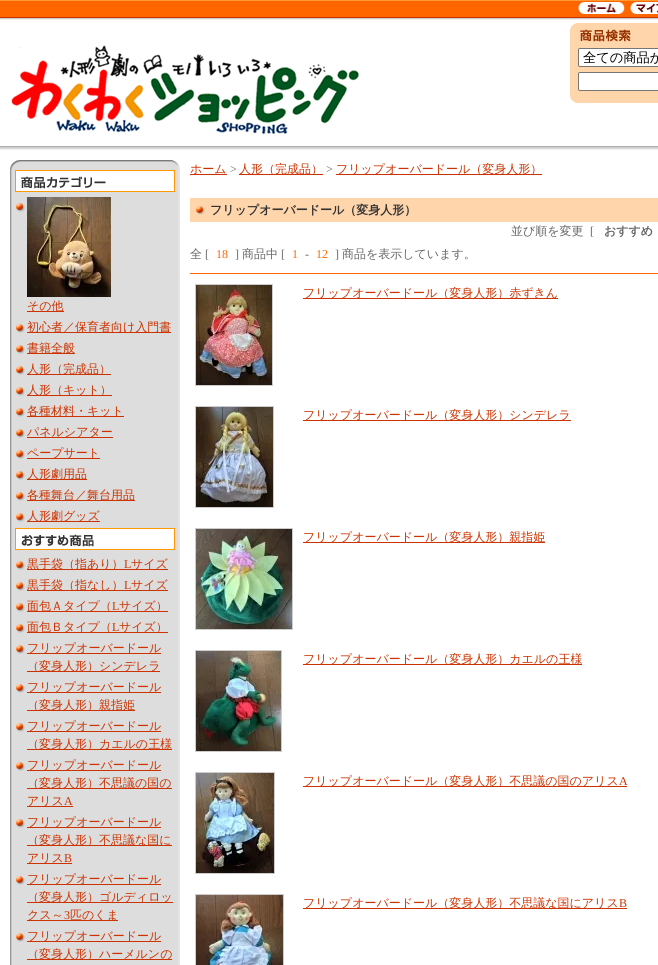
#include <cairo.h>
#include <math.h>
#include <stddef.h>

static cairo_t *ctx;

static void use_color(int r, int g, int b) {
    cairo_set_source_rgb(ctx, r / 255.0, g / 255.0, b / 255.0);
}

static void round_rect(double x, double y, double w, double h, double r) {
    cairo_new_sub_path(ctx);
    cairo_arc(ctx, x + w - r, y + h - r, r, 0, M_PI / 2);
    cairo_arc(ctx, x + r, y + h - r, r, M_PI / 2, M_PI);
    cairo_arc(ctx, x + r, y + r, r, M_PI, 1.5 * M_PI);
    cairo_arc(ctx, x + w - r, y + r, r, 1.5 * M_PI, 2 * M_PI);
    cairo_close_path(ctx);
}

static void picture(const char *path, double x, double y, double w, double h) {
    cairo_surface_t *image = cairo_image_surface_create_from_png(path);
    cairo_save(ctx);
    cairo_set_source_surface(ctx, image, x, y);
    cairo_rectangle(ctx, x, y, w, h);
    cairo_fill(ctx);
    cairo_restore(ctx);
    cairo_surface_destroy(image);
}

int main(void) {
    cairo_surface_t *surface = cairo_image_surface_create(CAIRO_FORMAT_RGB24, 658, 965);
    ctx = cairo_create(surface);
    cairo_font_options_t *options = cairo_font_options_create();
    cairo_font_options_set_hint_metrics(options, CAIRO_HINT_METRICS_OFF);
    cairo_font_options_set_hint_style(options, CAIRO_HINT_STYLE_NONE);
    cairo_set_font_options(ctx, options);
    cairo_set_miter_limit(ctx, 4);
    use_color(255, 255, 255);
    cairo_paint(ctx);
    picture("img1.png", 0, 0, 658, 20);
    picture("img2.png", 578, 2, 47, 12);
    picture("img3.png", 630, 2, 28, 12);
    picture("img4.png", 0, 146, 658, 4);
    picture("img5.png", 11, 45, 348, 90);
    use_color(255, 213, 172);
    cairo_rectangle(ctx, 570, 23, 88, 80);
    cairo_fill(ctx);
    picture("img6.png", 570, 96, 7, 7);
    picture("img7.png", 570, 23, 61, 19);
    use_color(255, 255, 255);
    round_rect(578.5, 48.5, 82, 18, 1.5);
    cairo_fill_preserve(ctx);
    use_color(118, 118, 118);
    cairo_set_line_width(ctx, 1);
    cairo_stroke(ctx);
    cairo_select_font_face(ctx, "WenQuanYi Zen Hei Medium", CAIRO_FONT_SLANT_NORMAL, CAIRO_FONT_WEIGHT_NORMAL);
    cairo_set_font_size(ctx, 13.25);
    use_color(0, 0, 0);
    cairo_move_to(ctx, 583, 62);
    cairo_show_text(ctx, "全ての商品か");
    use_color(255, 255, 255);
    round_rect(578.5, 72.5, 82, 18, 1.5);
    cairo_fill_preserve(ctx);
    use_color(118, 118, 118);
    cairo_stroke(ctx);
    picture("img8.png", 10, 162, 170, 803);
    picture("img9.png", 10, 160, 170, 10);
    use_color(255, 255, 255);
    cairo_rectangle(ctx, 15.5, 170.5, 159, 21);
    cairo_fill_preserve(ctx);
    use_color(255, 153, 0);
    cairo_stroke(ctx);
    picture("img10.png", 21, 176, 85, 13);
    picture("img11.png", 16, 203, 9, 9);
    picture("img12.png", 27, 197, 84, 100);
    use_color(204, 51, 0);
    cairo_rectangle(ctx, 27, 311, 37, 1);
    cairo_fill(ctx);
    cairo_set_font_size(ctx, 12);
    cairo_move_to(ctx, 27, 310);
    cairo_show_text(ctx, "その他");
    picture("img11.png", 16, 324, 9, 9);
    cairo_rectangle(ctx, 27, 332, 144, 1);
    cairo_fill(ctx);
    cairo_move_to(ctx, 27, 331);
    cairo_show_text(ctx, "初心者／保育者向け入門書");
    picture("img11.png", 16, 345, 9, 9);
    cairo_rectangle(ctx, 27, 353, 48, 1);
    cairo_fill(ctx);
    cairo_move_to(ctx, 27, 352);
    cairo_show_text(ctx, "書籍全般");
    picture("img11.png", 16, 366, 9, 9);
    cairo_rectangle(ctx, 27, 374, 84, 1);
    cairo_fill(ctx);
    cairo_move_to(ctx, 27, 373);
    cairo_show_text(ctx, "人形（完成品）");
    picture("img11.png", 16, 387, 9, 9);
    cairo_rectangle(ctx, 27, 395, 85, 1);
    cairo_fill(ctx);
    cairo_move_to(ctx, 27, 394);
    cairo_show_text(ctx, "人形（キット）");
    picture("img11.png", 16, 408, 9, 9);
    cairo_rectangle(ctx, 27, 416, 97, 1);
    cairo_fill(ctx);
    cairo_move_to(ctx, 27, 415);
    cairo_show_text(ctx, "各種材料・キット");
    picture("img11.png", 16, 429, 9, 9);
    cairo_rectangle(ctx, 27, 437, 86, 1);
    cairo_fill(ctx);
    cairo_move_to(ctx, 27, 436);
    cairo_show_text(ctx, "パネルシアター");
    picture("img11.png", 16, 450, 9, 9);
    cairo_rectangle(ctx, 27, 458, 73, 1);
    cairo_fill(ctx);
    cairo_move_to(ctx, 27, 457);
    cairo_show_text(ctx, "ペープサート");
    picture("img11.png", 16, 471, 9, 9);
    cairo_rectangle(ctx, 27, 479, 60, 1);
    cairo_fill(ctx);
    cairo_move_to(ctx, 27, 478);
    cairo_show_text(ctx, "人形劇用品");
    picture("img11.png", 16, 492, 9, 9);
    cairo_rectangle(ctx, 27, 500, 108, 1);
    cairo_fill(ctx);
    cairo_move_to(ctx, 27, 499);
    cairo_show_text(ctx, "各種舞台／舞台用品");
    picture("img11.png", 16, 513, 9, 9);
    cairo_rectangle(ctx, 27, 521, 73, 1);
    cairo_fill(ctx);
    cairo_move_to(ctx, 27, 520);
    cairo_show_text(ctx, "人形劇グッズ");
    use_color(255, 255, 255);
    cairo_rectangle(ctx, 15.5, 528.5, 159, 21);
    cairo_fill_preserve(ctx);
    use_color(255, 153, 0);
    cairo_stroke(ctx);
    picture("img13.png", 21, 534, 73, 13);
    picture("img11.png", 16, 561, 9, 9);
    use_color(204, 51, 0);
    cairo_rectangle(ctx, 27, 569, 141, 1);
    cairo_fill(ctx);
    cairo_move_to(ctx, 27, 568);
    cairo_show_text(ctx, "黒手袋（指あり）");
    cairo_select_font_face(ctx, "Liberation Serif", CAIRO_FONT_SLANT_NORMAL, CAIRO_FONT_WEIGHT_NORMAL);
    cairo_move_to(ctx, 124, 568);
    cairo_show_text(ctx, "L");
    cairo_select_font_face(ctx, "WenQuanYi Zen Hei Medium", CAIRO_FONT_SLANT_NORMAL, CAIRO_FONT_WEIGHT_NORMAL);
    cairo_move_to(ctx, 131, 568);
    cairo_show_text(ctx, "サイズ");
    picture("img11.png", 16, 582, 9, 9);
    cairo_rectangle(ctx, 27, 590, 141, 1);
    cairo_fill(ctx);
    cairo_move_to(ctx, 27, 589);
    cairo_show_text(ctx, "黒手袋（指なし）");
    cairo_select_font_face(ctx, "Liberation Serif", CAIRO_FONT_SLANT_NORMAL, CAIRO_FONT_WEIGHT_NORMAL);
    cairo_move_to(ctx, 124, 589);
    cairo_show_text(ctx, "L");
    cairo_select_font_face(ctx, "WenQuanYi Zen Hei Medium", CAIRO_FONT_SLANT_NORMAL, CAIRO_FONT_WEIGHT_NORMAL);
    cairo_move_to(ctx, 131, 589);
    cairo_show_text(ctx, "サイズ");
    picture("img11.png", 16, 603, 9, 9);
    cairo_rectangle(ctx, 27, 611, 141, 1);
    cairo_fill(ctx);
    cairo_move_to(ctx, 27, 610);
    cairo_show_text(ctx, "面包Ａタイプ（");
    cairo_select_font_face(ctx, "Liberation Serif", CAIRO_FONT_SLANT_NORMAL, CAIRO_FONT_WEIGHT_NORMAL);
    cairo_move_to(ctx, 112, 610);
    cairo_show_text(ctx, "L");
    cairo_select_font_face(ctx, "WenQuanYi Zen Hei Medium", CAIRO_FONT_SLANT_NORMAL, CAIRO_FONT_WEIGHT_NORMAL);
    cairo_move_to(ctx, 119, 610);
    cairo_show_text(ctx, "サイズ）");
    picture("img11.png", 16, 624, 9, 9);
    cairo_rectangle(ctx, 27, 632, 141, 1);
    cairo_fill(ctx);
    cairo_move_to(ctx, 27, 631);
    cairo_show_text(ctx, "面包Ｂタイプ（");
    cairo_select_font_face(ctx, "Liberation Serif", CAIRO_FONT_SLANT_NORMAL, CAIRO_FONT_WEIGHT_NORMAL);
    cairo_move_to(ctx, 112, 631);
    cairo_show_text(ctx, "L");
    cairo_select_font_face(ctx, "WenQuanYi Zen Hei Medium", CAIRO_FONT_SLANT_NORMAL, CAIRO_FONT_WEIGHT_NORMAL);
    cairo_move_to(ctx, 119, 631);
    cairo_show_text(ctx, "サイズ）");
    picture("img11.png", 16, 645, 9, 9);
    cairo_rectangle(ctx, 27, 653, 134, 1);
    cairo_fill(ctx);
    cairo_move_to(ctx, 27, 652);
    cairo_show_text(ctx, "フリップオーバードール");
    cairo_rectangle(ctx, 27, 671, 133, 1);
    cairo_fill(ctx);
    cairo_move_to(ctx, 27, 670);
    cairo_show_text(ctx, "（変身人形）シンデレラ");
    picture("img11.png", 16, 684, 9, 9);
    cairo_rectangle(ctx, 27, 692, 134, 1);
    cairo_fill(ctx);
    cairo_move_to(ctx, 27, 691);
    cairo_show_text(ctx, "フリップオーバードール");
    cairo_rectangle(ctx, 27, 710, 108, 1);
    cairo_fill(ctx);
    cairo_move_to(ctx, 27, 709);
    cairo_show_text(ctx, "（変身人形）親指姫");
    picture("img11.png", 16, 723, 9, 9);
    cairo_rectangle(ctx, 27, 731, 134, 1);
    cairo_fill(ctx);
    cairo_move_to(ctx, 27, 730);
    cairo_show_text(ctx, "フリップオーバードール");
    cairo_rectangle(ctx, 27, 749, 145, 1);
    cairo_fill(ctx);
    cairo_move_to(ctx, 27, 748);
    cairo_show_text(ctx, "（変身人形）カエルの王様");
    picture("img11.png", 16, 762, 9, 9);
    cairo_rectangle(ctx, 27, 770, 134, 1);
    cairo_fill(ctx);
    cairo_move_to(ctx, 27, 769);
    cairo_show_text(ctx, "フリップオーバードール");
    cairo_rectangle(ctx, 27, 788, 145, 1);
    cairo_fill(ctx);
    cairo_move_to(ctx, 27, 787);
    cairo_show_text(ctx, "（変身人形）不思議の国の");
    cairo_rectangle(ctx, 27, 806, 46, 1);
    cairo_fill(ctx);
    cairo_move_to(ctx, 27, 805);
    cairo_show_text(ctx, "アリス");
    cairo_select_font_face(ctx, "Liberation Serif", CAIRO_FONT_SLANT_NORMAL, CAIRO_FONT_WEIGHT_NORMAL);
    cairo_move_to(ctx, 64, 805);
    cairo_show_text(ctx, "A");
    picture("img11.png", 16, 819, 9, 9);
    cairo_rectangle(ctx, 27, 827, 134, 1);
    cairo_fill(ctx);
    cairo_select_font_face(ctx, "WenQuanYi Zen Hei Medium", CAIRO_FONT_SLANT_NORMAL, CAIRO_FONT_WEIGHT_NORMAL);
    cairo_move_to(ctx, 27, 826);
    cairo_show_text(ctx, "フリップオーバードール");
    cairo_rectangle(ctx, 27, 845, 145, 1);
    cairo_fill(ctx);
    cairo_move_to(ctx, 27, 844);
    cairo_show_text(ctx, "（変身人形）不思議な国に");
    cairo_rectangle(ctx, 27, 863, 45, 1);
    cairo_fill(ctx);
    cairo_move_to(ctx, 27, 862);
    cairo_show_text(ctx, "アリス");
    cairo_select_font_face(ctx, "Liberation Serif", CAIRO_FONT_SLANT_NORMAL, CAIRO_FONT_WEIGHT_NORMAL);
    cairo_move_to(ctx, 64, 862);
    cairo_show_text(ctx, "B");
    picture("img11.png", 16, 876, 9, 9);
    cairo_rectangle(ctx, 27, 884, 134, 1);
    cairo_fill(ctx);
    cairo_select_font_face(ctx, "WenQuanYi Zen Hei Medium", CAIRO_FONT_SLANT_NORMAL, CAIRO_FONT_WEIGHT_NORMAL);
    cairo_move_to(ctx, 27, 883);
    cairo_show_text(ctx, "フリップオーバードール");
    cairo_rectangle(ctx, 27, 902, 146, 1);
    cairo_fill(ctx);
    cairo_move_to(ctx, 27, 901);
    cairo_show_text(ctx, "（変身人形）ゴルディロッ");
    cairo_rectangle(ctx, 27, 920, 91, 1);
    cairo_fill(ctx);
    cairo_move_to(ctx, 27, 919);
    cairo_show_text(ctx, "クス～");
    cairo_select_font_face(ctx, "Liberation Serif", CAIRO_FONT_SLANT_NORMAL, CAIRO_FONT_WEIGHT_NORMAL);
    cairo_move_to(ctx, 64, 919);
    cairo_show_text(ctx, "3");
    cairo_select_font_face(ctx, "WenQuanYi Zen Hei Medium", CAIRO_FONT_SLANT_NORMAL, CAIRO_FONT_WEIGHT_NORMAL);
    cairo_move_to(ctx, 70, 919);
    cairo_show_text(ctx, "匹のくま");
    picture("img11.png", 16, 933, 9, 9);
    cairo_rectangle(ctx, 27, 941, 134, 1);
    cairo_fill(ctx);
    cairo_move_to(ctx, 27, 940);
    cairo_show_text(ctx, "フリップオーバードール");
    cairo_rectangle(ctx, 27, 959, 145, 1);
    cairo_fill(ctx);
    cairo_move_to(ctx, 27, 958);
    cairo_show_text(ctx, "（変身人形）ハーメルンの");
    cairo_rectangle(ctx, 190, 174, 37, 1);
    cairo_fill(ctx);
    cairo_move_to(ctx, 190, 173);
    cairo_show_text(ctx, "ホーム");
    cairo_select_font_face(ctx, "Liberation Serif", CAIRO_FONT_SLANT_NORMAL, CAIRO_FONT_WEIGHT_NORMAL);
    use_color(102, 102, 102);
    cairo_move_to(ctx, 230, 173);
    cairo_show_text(ctx, ">");
    use_color(204, 51, 0);
    cairo_rectangle(ctx, 239, 174, 84, 1);
    cairo_fill(ctx);
    cairo_select_font_face(ctx, "WenQuanYi Zen Hei Medium", CAIRO_FONT_SLANT_NORMAL, CAIRO_FONT_WEIGHT_NORMAL);
    cairo_move_to(ctx, 239, 173);
    cairo_show_text(ctx, "人形（完成品）");
    cairo_select_font_face(ctx, "Liberation Serif", CAIRO_FONT_SLANT_NORMAL, CAIRO_FONT_WEIGHT_NORMAL);
    use_color(102, 102, 102);
    cairo_move_to(ctx, 326, 173);
    cairo_show_text(ctx, ">");
    use_color(204, 51, 0);
    cairo_rectangle(ctx, 336, 174, 206, 1);
    cairo_fill(ctx);
    cairo_select_font_face(ctx, "WenQuanYi Zen Hei Medium", CAIRO_FONT_SLANT_NORMAL, CAIRO_FONT_WEIGHT_NORMAL);
    cairo_move_to(ctx, 336, 173);
    cairo_show_text(ctx, "フリップオーバードール（変身人形）");
    use_color(255, 213, 172);
    cairo_rectangle(ctx, 190, 198, 468, 24);
    cairo_fill(ctx);
    picture("img14.png", 196, 206, 9, 9);
    cairo_select_font_face(ctx, "WenQuanYi Zen Hei", CAIRO_FONT_SLANT_NORMAL, CAIRO_FONT_WEIGHT_BOLD);
    use_color(51, 51, 51);
    cairo_move_to(ctx, 210, 214);
    cairo_show_text(ctx, "フリップオーバードール（変身人形）");
    cairo_select_font_face(ctx, "WenQuanYi Zen Hei Medium", CAIRO_FONT_SLANT_NORMAL, CAIRO_FONT_WEIGHT_NORMAL);
    use_color(102, 102, 102);
    cairo_move_to(ctx, 511, 235);
    cairo_show_text(ctx, "並び順を変更");
    cairo_select_font_face(ctx, "Liberation Serif", CAIRO_FONT_SLANT_NORMAL, CAIRO_FONT_WEIGHT_NORMAL);
    cairo_move_to(ctx, 590, 235);
    cairo_show_text(ctx, "[");
    cairo_select_font_face(ctx, "WenQuanYi Zen Hei", CAIRO_FONT_SLANT_NORMAL, CAIRO_FONT_WEIGHT_BOLD);
    cairo_move_to(ctx, 604, 235);
    cairo_show_text(ctx, "おすすめ");
    cairo_select_font_face(ctx, "WenQuanYi Zen Hei Medium", CAIRO_FONT_SLANT_NORMAL, CAIRO_FONT_WEIGHT_NORMAL);
    cairo_move_to(ctx, 190, 258);
    cairo_show_text(ctx, "全");
    cairo_select_font_face(ctx, "Liberation Serif", CAIRO_FONT_SLANT_NORMAL, CAIRO_FONT_WEIGHT_NORMAL);
    cairo_move_to(ctx, 205, 258);
    cairo_show_text(ctx, "[");
    use_color(255, 102, 0);
    cairo_move_to(ctx, 216, 258);
    cairo_show_text(ctx, "18");
    use_color(102, 102, 102);
    cairo_move_to(ctx, 235, 258);
    cairo_show_text(ctx, "]");
    cairo_select_font_face(ctx, "WenQuanYi Zen Hei Medium", CAIRO_FONT_SLANT_NORMAL, CAIRO_FONT_WEIGHT_NORMAL);
    cairo_move_to(ctx, 242, 258);
    cairo_show_text(ctx, "商品中");
    cairo_select_font_face(ctx, "Liberation Serif", CAIRO_FONT_SLANT_NORMAL, CAIRO_FONT_WEIGHT_NORMAL);
    cairo_move_to(ctx, 281, 258);
    cairo_show_text(ctx, "[");
    use_color(255, 102, 0);
    cairo_move_to(ctx, 292, 258);
    cairo_show_text(ctx, "1");
    use_color(102, 102, 102);
    cairo_move_to(ctx, 305, 258);
    cairo_show_text(ctx, "-");
    use_color(255, 102, 0);
    cairo_move_to(ctx, 316, 258);
    cairo_show_text(ctx, "12");
    use_color(102, 102, 102);
    cairo_move_to(ctx, 335, 258);
    cairo_show_text(ctx, "]");
    cairo_select_font_face(ctx, "WenQuanYi Zen Hei Medium", CAIRO_FONT_SLANT_NORMAL, CAIRO_FONT_WEIGHT_NORMAL);
    cairo_move_to(ctx, 342, 258);
    cairo_show_text(ctx, "商品を表示しています。");
    use_color(255, 102, 0);
    cairo_rectangle(ctx, 190, 273, 468, 1);
    cairo_fill(ctx);
    cairo_rectangle(ctx, 195.5, 284.5, 77, 101);
    use_color(204, 204, 204);
    cairo_stroke(ctx);
    picture("img15.png", 196, 285, 76, 100);
    use_color(204, 51, 0);
    cairo_rectangle(ctx, 303, 298, 255, 1);
    cairo_fill(ctx);
    cairo_move_to(ctx, 303, 297);
    cairo_show_text(ctx, "フリップオーバードール（変身人形）赤ずきん");
    cairo_rectangle(ctx, 195.5, 406.5, 78, 101);
    use_color(204, 204, 204);
    cairo_stroke(ctx);
    picture("img16.png", 196, 407, 77, 100);
    use_color(204, 51, 0);
    cairo_rectangle(ctx, 303, 420, 268, 1);
    cairo_fill(ctx);
    cairo_move_to(ctx, 303, 419);
    cairo_show_text(ctx, "フリップオーバードール（変身人形）シンデレラ");
    cairo_rectangle(ctx, 195.5, 528.5, 97, 101);
    use_color(204, 204, 204);
    cairo_stroke(ctx);
    picture("img17.png", 196, 529, 96, 100);
    use_color(204, 51, 0);
    cairo_rectangle(ctx, 303, 542, 242, 1);
    cairo_fill(ctx);
    cairo_move_to(ctx, 303, 541);
    cairo_show_text(ctx, "フリップオーバードール（変身人形）親指姫");
    cairo_rectangle(ctx, 195.5, 650.5, 86, 101);
    use_color(204, 204, 204);
    cairo_stroke(ctx);
    picture("img18.png", 196, 651, 85, 100);
    use_color(204, 51, 0);
    cairo_rectangle(ctx, 303, 664, 279, 1);
    cairo_fill(ctx);
    cairo_move_to(ctx, 303, 663);
    cairo_show_text(ctx, "フリップオーバードール（変身人形）カエルの王様");
    cairo_rectangle(ctx, 195.5, 772.5, 79, 101);
    use_color(204, 204, 204);
    cairo_stroke(ctx);
    picture("img19.png", 196, 773, 78, 100);
    use_color(204, 51, 0);
    cairo_rectangle(ctx, 303, 786, 324, 1);
    cairo_fill(ctx);
    cairo_move_to(ctx, 303, 785);
    cairo_show_text(ctx, "フリップオーバードール（変身人形）不思議の国のアリス");
    cairo_select_font_face(ctx, "Liberation Serif", CAIRO_FONT_SLANT_NORMAL, CAIRO_FONT_WEIGHT_NORMAL);
    cairo_move_to(ctx, 619, 785);
    cairo_show_text(ctx, "A");
    cairo_rectangle(ctx, 195.5, 894.5, 88, 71);
    use_color(204, 204, 204);
    cairo_stroke(ctx);
    picture("img20.png", 196, 895, 87, 70);
    use_color(204, 51, 0);
    cairo_rectangle(ctx, 303, 908, 324, 1);
    cairo_fill(ctx);
    cairo_select_font_face(ctx, "WenQuanYi Zen Hei Medium", CAIRO_FONT_SLANT_NORMAL, CAIRO_FONT_WEIGHT_NORMAL);
    cairo_move_to(ctx, 303, 907);
    cairo_show_text(ctx, "フリップオーバードール（変身人形）不思議な国にアリス");
    cairo_select_font_face(ctx, "Liberation Serif", CAIRO_FONT_SLANT_NORMAL, CAIRO_FONT_WEIGHT_NORMAL);
    cairo_move_to(ctx, 619, 907);
    cairo_show_text(ctx, "B");
    cairo_surface_write_to_png(surface, "result.png");
    cairo_font_options_destroy(options);
    cairo_destroy(ctx);
    cairo_surface_destroy(surface);
    return 0;
}
